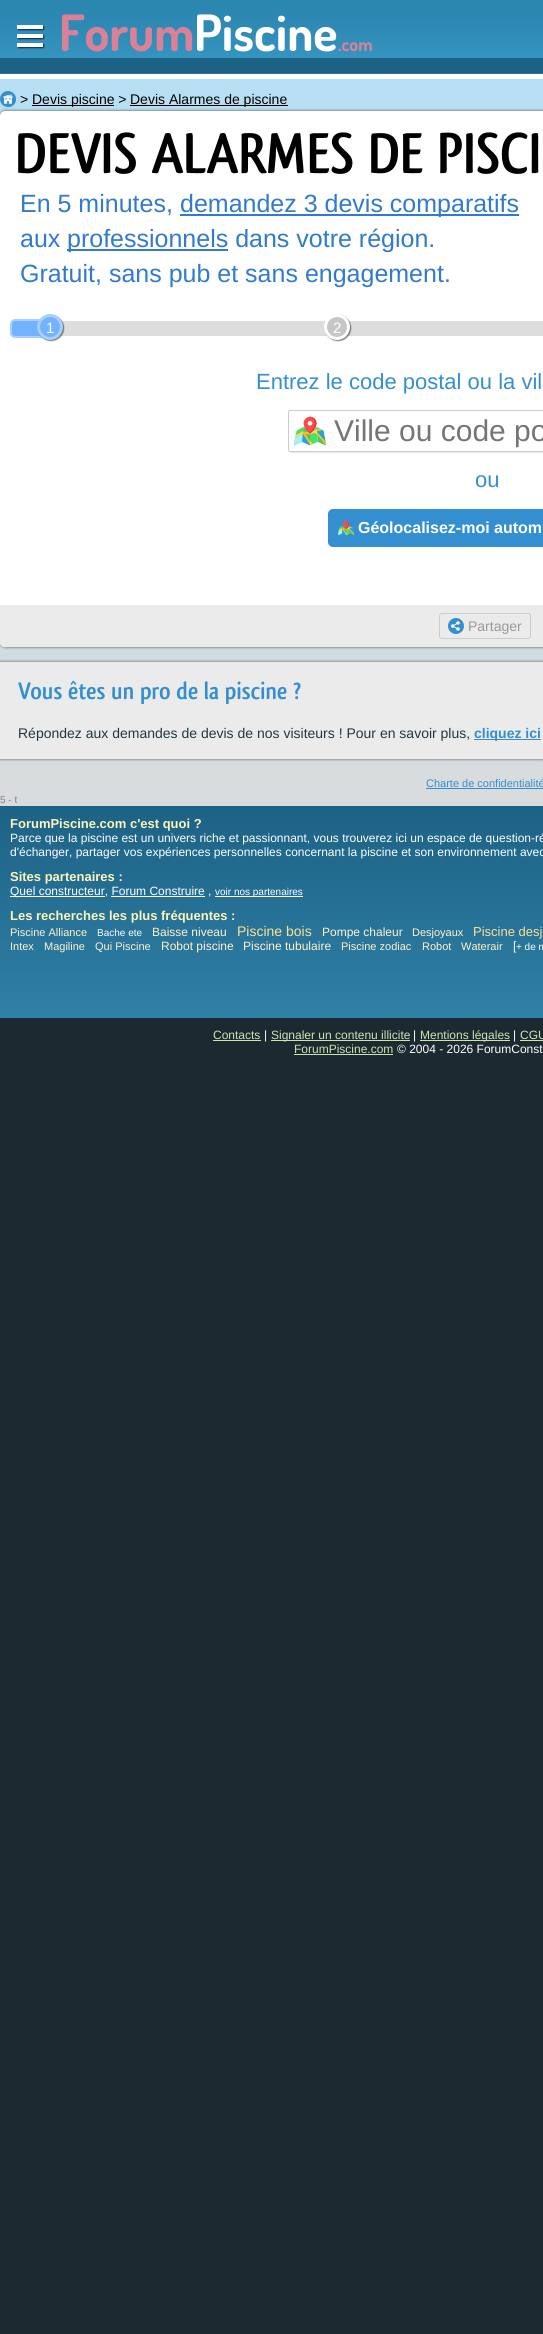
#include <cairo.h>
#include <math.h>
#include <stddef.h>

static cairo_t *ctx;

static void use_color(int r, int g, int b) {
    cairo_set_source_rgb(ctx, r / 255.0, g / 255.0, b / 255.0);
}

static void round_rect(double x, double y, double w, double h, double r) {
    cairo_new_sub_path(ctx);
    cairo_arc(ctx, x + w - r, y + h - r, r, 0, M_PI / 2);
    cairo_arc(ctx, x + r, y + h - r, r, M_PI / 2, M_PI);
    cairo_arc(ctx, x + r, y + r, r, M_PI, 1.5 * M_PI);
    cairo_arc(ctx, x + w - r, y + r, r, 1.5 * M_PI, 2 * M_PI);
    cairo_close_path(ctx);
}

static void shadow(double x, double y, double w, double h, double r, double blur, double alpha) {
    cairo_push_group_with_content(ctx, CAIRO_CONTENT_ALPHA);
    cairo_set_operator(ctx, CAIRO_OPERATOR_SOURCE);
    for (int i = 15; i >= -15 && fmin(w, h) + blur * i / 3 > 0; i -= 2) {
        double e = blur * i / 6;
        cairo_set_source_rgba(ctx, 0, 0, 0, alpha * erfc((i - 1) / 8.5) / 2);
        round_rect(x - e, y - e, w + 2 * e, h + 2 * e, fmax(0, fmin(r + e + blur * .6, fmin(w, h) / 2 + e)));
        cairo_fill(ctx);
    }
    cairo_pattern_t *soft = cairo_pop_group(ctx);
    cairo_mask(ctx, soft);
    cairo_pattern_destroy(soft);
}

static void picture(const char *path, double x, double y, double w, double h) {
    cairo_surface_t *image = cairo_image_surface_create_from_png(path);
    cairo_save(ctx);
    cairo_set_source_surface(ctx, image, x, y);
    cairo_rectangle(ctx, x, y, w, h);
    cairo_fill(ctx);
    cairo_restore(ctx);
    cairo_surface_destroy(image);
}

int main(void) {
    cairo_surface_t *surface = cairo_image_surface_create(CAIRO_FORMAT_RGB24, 543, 2334);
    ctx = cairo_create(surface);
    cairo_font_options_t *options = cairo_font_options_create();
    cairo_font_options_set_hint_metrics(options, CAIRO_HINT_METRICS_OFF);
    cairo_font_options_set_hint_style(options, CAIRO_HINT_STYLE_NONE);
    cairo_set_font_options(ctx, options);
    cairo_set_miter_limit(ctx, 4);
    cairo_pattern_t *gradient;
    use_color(27, 42, 48);
    cairo_paint(ctx);
    picture("img1.png", 0, 0, 543, 806);
    picture("img2.png", 17, 25, 28, 24);
    cairo_select_font_face(ctx, "Dosis", CAIRO_FONT_SLANT_NORMAL, CAIRO_FONT_WEIGHT_BOLD);
    cairo_set_font_size(ctx, 50);
    use_color(219, 129, 151);
    cairo_move_to(ctx, 59, 51);
    cairo_show_text(ctx, "Forum");
    use_color(255, 255, 255);
    cairo_move_to(ctx, 194, 51);
    cairo_show_text(ctx, "Piscine");
    cairo_set_font_size(ctx, 18);
    use_color(219, 129, 151);
    cairo_move_to(ctx, 338, 51);
    cairo_show_text(ctx, ".com");
    use_color(85, 85, 85);
    shadow(0, 111, 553, 536, 5, 1.5, 1);
    picture("img3.png", 0, 91, 16, 16);
    cairo_select_font_face(ctx, "Liberation Sans", CAIRO_FONT_SLANT_NORMAL, CAIRO_FONT_WEIGHT_NORMAL);
    cairo_set_font_size(ctx, 14);
    use_color(0, 0, 0);
    cairo_move_to(ctx, 20, 104);
    cairo_show_text(ctx, ">");
    cairo_rectangle(ctx, 32, 105, 82, 1);
    cairo_fill(ctx);
    cairo_move_to(ctx, 32, 104);
    cairo_show_text(ctx, "Devis piscine >");
    cairo_rectangle(ctx, 130, 105, 158, 1);
    cairo_fill(ctx);
    cairo_move_to(ctx, 130, 104);
    cairo_show_text(ctx, "Devis Alarmes de piscine");
    use_color(255, 255, 255);
    round_rect(0, 111, 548, 536, 5);
    cairo_fill(ctx);
    cairo_select_font_face(ctx, "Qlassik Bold", CAIRO_FONT_SLANT_NORMAL, CAIRO_FONT_WEIGHT_BOLD);
    cairo_set_font_size(ctx, 60);
    use_color(0, 0, 0);
    cairo_move_to(ctx, 15, 173);
    cairo_show_text(ctx, "DEVIS ALARMES DE PISCI");
    cairo_select_font_face(ctx, "Liberation Sans", CAIRO_FONT_SLANT_NORMAL, CAIRO_FONT_WEIGHT_NORMAL);
    cairo_set_font_size(ctx, 25);
    use_color(49, 122, 206);
    cairo_move_to(ctx, 20, 212);
    cairo_show_text(ctx, "En 5 minutes,");
    cairo_rectangle(ctx, 180, 214, 339, 2);
    cairo_fill(ctx);
    cairo_move_to(ctx, 180, 212);
    cairo_show_text(ctx, "demandez 3 devis comparatifs");
    cairo_move_to(ctx, 20, 247);
    cairo_show_text(ctx, "aux");
    cairo_rectangle(ctx, 67, 249, 161, 2);
    cairo_fill(ctx);
    cairo_move_to(ctx, 67, 247);
    cairo_show_text(ctx, "professionnels dans votre région.");
    cairo_move_to(ctx, 20, 282);
    cairo_show_text(ctx, "Gratuit, sans pub et sans engagement.");
    use_color(221, 221, 221);
    round_rect(10, 321, 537, 15, 4);
    cairo_fill(ctx);
    use_color(113, 179, 255);
    round_rect(11, 320, 38, 17, 4);
    cairo_fill_preserve(ctx);
    use_color(167, 208, 255);
    cairo_stroke(ctx);
    use_color(0, 0, 0);
    shadow(38, 315, 26, 26, 13, 0.5, 0.5);
    use_color(113, 179, 255);
    cairo_arc(ctx, 50, 327, 11.5, 0, 2 * M_PI);
    cairo_fill_preserve(ctx);
    use_color(167, 208, 255);
    cairo_set_line_width(ctx, 3);
    cairo_stroke(ctx);
    cairo_set_font_size(ctx, 15);
    use_color(255, 255, 255);
    cairo_move_to(ctx, 46, 333);
    cairo_show_text(ctx, "1");
    use_color(0, 0, 0);
    shadow(325, 315, 26, 26, 13, 0.5, 0.5);
    use_color(198, 198, 198);
    cairo_arc(ctx, 337, 327, 11.5, 0, 2 * M_PI);
    cairo_fill_preserve(ctx);
    use_color(255, 255, 255);
    cairo_stroke(ctx);
    cairo_move_to(ctx, 333, 333);
    cairo_show_text(ctx, "2");
    cairo_set_font_size(ctx, 22);
    use_color(52, 143, 209);
    cairo_move_to(ctx, 256, 389);
    cairo_show_text(ctx, "Entrez le code postal ou la vil");
    cairo_save(ctx);
    cairo_set_fill_rule(ctx, CAIRO_FILL_RULE_EVEN_ODD);
    cairo_new_path(ctx);
    cairo_move_to(ctx, 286, 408);
    cairo_line_to(ctx, 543, 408);
    cairo_line_to(ctx, 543, 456);
    cairo_line_to(ctx, 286, 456);
    cairo_close_path(ctx);
    cairo_move_to(ctx, 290, 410);
    cairo_line_to(ctx, 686, 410);
    cairo_curve_to(ctx, 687, 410, 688, 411, 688, 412);
    cairo_line_to(ctx, 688, 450);
    cairo_curve_to(ctx, 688, 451, 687, 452, 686, 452);
    cairo_line_to(ctx, 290, 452);
    cairo_curve_to(ctx, 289, 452, 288, 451, 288, 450);
    cairo_line_to(ctx, 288, 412);
    cairo_curve_to(ctx, 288, 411, 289, 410, 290, 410);
    cairo_close_path(ctx);
    cairo_clip(ctx);
    use_color(234, 234, 234);
    shadow(289, 411, 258, 42, 2, 0.5, 1);
    cairo_restore(ctx);
    picture("img4.png", 294, 416, 32, 30);
    round_rect(288.5, 410.5, 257, 41, 1.5);
    use_color(204, 204, 204);
    cairo_set_line_width(ctx, 1);
    cairo_stroke(ctx);
    cairo_set_font_size(ctx, 30);
    use_color(117, 117, 117);
    cairo_move_to(ctx, 334, 441);
    cairo_show_text(ctx, "Ville ou code po");
    cairo_set_font_size(ctx, 22);
    use_color(52, 143, 209);
    cairo_move_to(ctx, 475, 487);
    cairo_show_text(ctx, "ou");
    round_rect(328, 509, 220, 38, 5);
    cairo_fill(ctx);
    picture("img5.png", 338, 520, 16, 16);
    cairo_select_font_face(ctx, "Liberation Sans", CAIRO_FONT_SLANT_NORMAL, CAIRO_FONT_WEIGHT_BOLD);
    cairo_set_font_size(ctx, 16);
    use_color(255, 255, 255);
    cairo_move_to(ctx, 358, 533);
    cairo_show_text(ctx, "Géolocalisez-moi autom");
    use_color(235, 235, 235);
    cairo_new_path(ctx);
    cairo_move_to(ctx, 0, 605);
    cairo_line_to(ctx, 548, 605);
    cairo_line_to(ctx, 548, 642);
    cairo_curve_to(ctx, 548, 645, 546, 647, 543, 647);
    cairo_line_to(ctx, 5, 647);
    cairo_curve_to(ctx, 2, 647, 0, 645, 0, 642);
    cairo_close_path(ctx);
    cairo_fill(ctx);
    round_rect(439.5, 613.5, 91, 25, 2.5);
    use_color(204, 204, 204);
    cairo_stroke(ctx);
    picture("img6.png", 448, 618, 16, 16);
    cairo_select_font_face(ctx, "Liberation Sans", CAIRO_FONT_SLANT_NORMAL, CAIRO_FONT_WEIGHT_NORMAL);
    cairo_set_font_size(ctx, 14);
    use_color(153, 153, 153);
    cairo_move_to(ctx, 468, 631);
    cairo_show_text(ctx, "Partager");
    use_color(85, 85, 85);
    shadow(0, 662, 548, 97, 0, 1.5, 1);
    use_color(235, 235, 235);
    cairo_rectangle(ctx, 0, 662, 543, 97);
    cairo_fill(ctx);
    cairo_select_font_face(ctx, "Qlassik Bold", CAIRO_FONT_SLANT_NORMAL, CAIRO_FONT_WEIGHT_BOLD);
    cairo_set_font_size(ctx, 25);
    use_color(52, 143, 209);
    cairo_move_to(ctx, 18, 699);
    cairo_show_text(ctx, "Vous êtes un pro de la piscine ?");
    cairo_select_font_face(ctx, "Liberation Sans", CAIRO_FONT_SLANT_NORMAL, CAIRO_FONT_WEIGHT_NORMAL);
    cairo_set_font_size(ctx, 14);
    use_color(35, 55, 67);
    cairo_move_to(ctx, 18, 738);
    cairo_show_text(ctx, "Répondez aux demandes de devis de nos visiteurs ! Pour en savoir plus,");
    use_color(52, 143, 209);
    cairo_rectangle(ctx, 474, 739, 67, 1);
    cairo_fill(ctx);
    cairo_select_font_face(ctx, "Liberation Sans", CAIRO_FONT_SLANT_NORMAL, CAIRO_FONT_WEIGHT_BOLD);
    cairo_move_to(ctx, 474, 738);
    cairo_show_text(ctx, "cliquez ici");
    cairo_select_font_face(ctx, "Liberation Sans", CAIRO_FONT_SLANT_NORMAL, CAIRO_FONT_WEIGHT_NORMAL);
    cairo_set_font_size(ctx, 11);
    cairo_move_to(ctx, 426, 787);
    cairo_show_text(ctx, "Charte de confidentialité");
    cairo_rectangle(ctx, 426, 788, 117, 1);
    cairo_fill(ctx);
    cairo_set_font_size(ctx, 10);
    use_color(131, 131, 131);
    cairo_move_to(ctx, 0, 803);
    cairo_show_text(ctx, "5 - t");
    gradient = cairo_pattern_create_linear(272, 806, 272, 1018);
    cairo_pattern_add_color_stop_rgba(gradient, 0, 0.11, 0.384, 0.522, 1);
    cairo_pattern_add_color_stop_rgba(gradient, 1, 0.188, 0.502, 0.655, 1);
    cairo_set_source(ctx, gradient);
    cairo_pattern_destroy(gradient);
    cairo_rectangle(ctx, 0, 806, 543, 212);
    cairo_fill(ctx);
    cairo_select_font_face(ctx, "Liberation Sans", CAIRO_FONT_SLANT_NORMAL, CAIRO_FONT_WEIGHT_BOLD);
    cairo_set_font_size(ctx, 13);
    use_color(254, 245, 185);
    cairo_move_to(ctx, 10, 828);
    cairo_show_text(ctx, "ForumPiscine.com c'est quoi ?");
    cairo_select_font_face(ctx, "Liberation Sans", CAIRO_FONT_SLANT_NORMAL, CAIRO_FONT_WEIGHT_NORMAL);
    cairo_set_font_size(ctx, 12);
    use_color(255, 255, 255);
    cairo_move_to(ctx, 10, 842);
    cairo_show_text(ctx, "Parce que la piscine est un univers riche et passionnant, vous trouverez ici un espace de question-ré");
    cairo_move_to(ctx, 10, 856);
    cairo_show_text(ctx, "d'échanger, partager vos expériences personnelles concernant la piscine et son environnement avec");
    cairo_select_font_face(ctx, "Liberation Sans", CAIRO_FONT_SLANT_NORMAL, CAIRO_FONT_WEIGHT_BOLD);
    cairo_set_font_size(ctx, 13);
    use_color(254, 245, 185);
    cairo_move_to(ctx, 10, 881);
    cairo_show_text(ctx, "Sites partenaires :");
    use_color(255, 255, 255);
    cairo_rectangle(ctx, 10, 896, 95, 1);
    cairo_fill(ctx);
    cairo_select_font_face(ctx, "Liberation Sans", CAIRO_FONT_SLANT_NORMAL, CAIRO_FONT_WEIGHT_NORMAL);
    cairo_set_font_size(ctx, 12);
    cairo_move_to(ctx, 10, 895);
    cairo_show_text(ctx, "Quel constructeur, Forum Construire ,");
    cairo_rectangle(ctx, 215, 896, 88, 1);
    cairo_fill(ctx);
    cairo_set_font_size(ctx, 10);
    cairo_move_to(ctx, 215, 895);
    cairo_show_text(ctx, "voir nos partenaires");
    cairo_rectangle(ctx, 111, 896, 94, 1);
    cairo_fill(ctx);
    cairo_select_font_face(ctx, "Liberation Sans", CAIRO_FONT_SLANT_NORMAL, CAIRO_FONT_WEIGHT_BOLD);
    cairo_set_font_size(ctx, 13);
    use_color(254, 245, 185);
    cairo_move_to(ctx, 10, 920);
    cairo_show_text(ctx, "Les recherches les plus fréquentes :");
    cairo_select_font_face(ctx, "Liberation Sans", CAIRO_FONT_SLANT_NORMAL, CAIRO_FONT_WEIGHT_NORMAL);
    cairo_set_font_size(ctx, 11);
    use_color(255, 242, 207);
    cairo_move_to(ctx, 10, 936);
    cairo_show_text(ctx, "Piscine Alliance");
    cairo_set_font_size(ctx, 10);
    use_color(255, 255, 255);
    cairo_move_to(ctx, 97, 936);
    cairo_show_text(ctx, "Bache ete");
    cairo_set_font_size(ctx, 12);
    use_color(255, 242, 207);
    cairo_move_to(ctx, 152, 936);
    cairo_show_text(ctx, "Baisse niveau");
    cairo_set_font_size(ctx, 14);
    use_color(255, 224, 143);
    cairo_move_to(ctx, 237, 936);
    cairo_show_text(ctx, "Piscine bois");
    cairo_set_font_size(ctx, 12);
    use_color(255, 242, 207);
    cairo_move_to(ctx, 322, 936);
    cairo_show_text(ctx, "Pompe chaleur");
    cairo_set_font_size(ctx, 11);
    cairo_move_to(ctx, 412, 936);
    cairo_show_text(ctx, "Desjoyaux");
    cairo_set_font_size(ctx, 13);
    use_color(255, 224, 143);
    cairo_move_to(ctx, 473, 936);
    cairo_show_text(ctx, "Piscine desj");
    cairo_set_font_size(ctx, 11);
    use_color(255, 242, 207);
    cairo_move_to(ctx, 10, 950);
    cairo_show_text(ctx, "Intex");
    cairo_move_to(ctx, 44, 950);
    cairo_show_text(ctx, "Magiline");
    cairo_move_to(ctx, 95, 950);
    cairo_show_text(ctx, "Qui Piscine");
    cairo_set_font_size(ctx, 12);
    cairo_move_to(ctx, 161, 950);
    cairo_show_text(ctx, "Robot piscine");
    cairo_move_to(ctx, 243, 950);
    cairo_show_text(ctx, "Piscine tubulaire");
    cairo_set_font_size(ctx, 11);
    cairo_move_to(ctx, 341, 950);
    cairo_show_text(ctx, "Piscine zodiac");
    cairo_move_to(ctx, 422, 950);
    cairo_show_text(ctx, "Robot");
    cairo_move_to(ctx, 461, 950);
    cairo_show_text(ctx, "Waterair");
    cairo_set_font_size(ctx, 12);
    use_color(255, 255, 255);
    cairo_move_to(ctx, 513, 950);
    cairo_show_text(ctx, "[");
    cairo_set_font_size(ctx, 10);
    cairo_move_to(ctx, 516, 950);
    cairo_show_text(ctx, "+ de m");
    cairo_set_font_size(ctx, 12);
    use_color(206, 228, 176);
    cairo_move_to(ctx, 213, 1039);
    cairo_show_text(ctx, "Contacts");
    cairo_rectangle(ctx, 213, 1040, 48, 1);
    cairo_fill(ctx);
    use_color(255, 255, 255);
    cairo_move_to(ctx, 264, 1039);
    cairo_show_text(ctx, "|");
    use_color(206, 228, 176);
    cairo_rectangle(ctx, 271, 1040, 139, 1);
    cairo_fill(ctx);
    cairo_move_to(ctx, 271, 1039);
    cairo_show_text(ctx, "Signaler un contenu illicite");
    use_color(255, 255, 255);
    cairo_move_to(ctx, 413, 1039);
    cairo_show_text(ctx, "|");
    use_color(206, 228, 176);
    cairo_rectangle(ctx, 420, 1040, 90, 1);
    cairo_fill(ctx);
    cairo_move_to(ctx, 420, 1039);
    cairo_show_text(ctx, "Mentions légales");
    use_color(255, 255, 255);
    cairo_move_to(ctx, 513, 1039);
    cairo_show_text(ctx, "|");
    use_color(206, 228, 176);
    cairo_move_to(ctx, 520, 1039);
    cairo_show_text(ctx, "CGU");
    cairo_rectangle(ctx, 520, 1040, 23, 1);
    cairo_fill(ctx);
    cairo_move_to(ctx, 294, 1053);
    cairo_show_text(ctx, "ForumPiscine.com");
    cairo_rectangle(ctx, 294, 1054, 99, 1);
    cairo_fill(ctx);
    use_color(255, 255, 255);
    cairo_move_to(ctx, 397, 1053);
    cairo_show_text(ctx, "© 2004 - 2026 ForumConst");
    cairo_surface_write_to_png(surface, "result.png");
    cairo_font_options_destroy(options);
    cairo_destroy(ctx);
    cairo_surface_destroy(surface);
    return 0;
}
